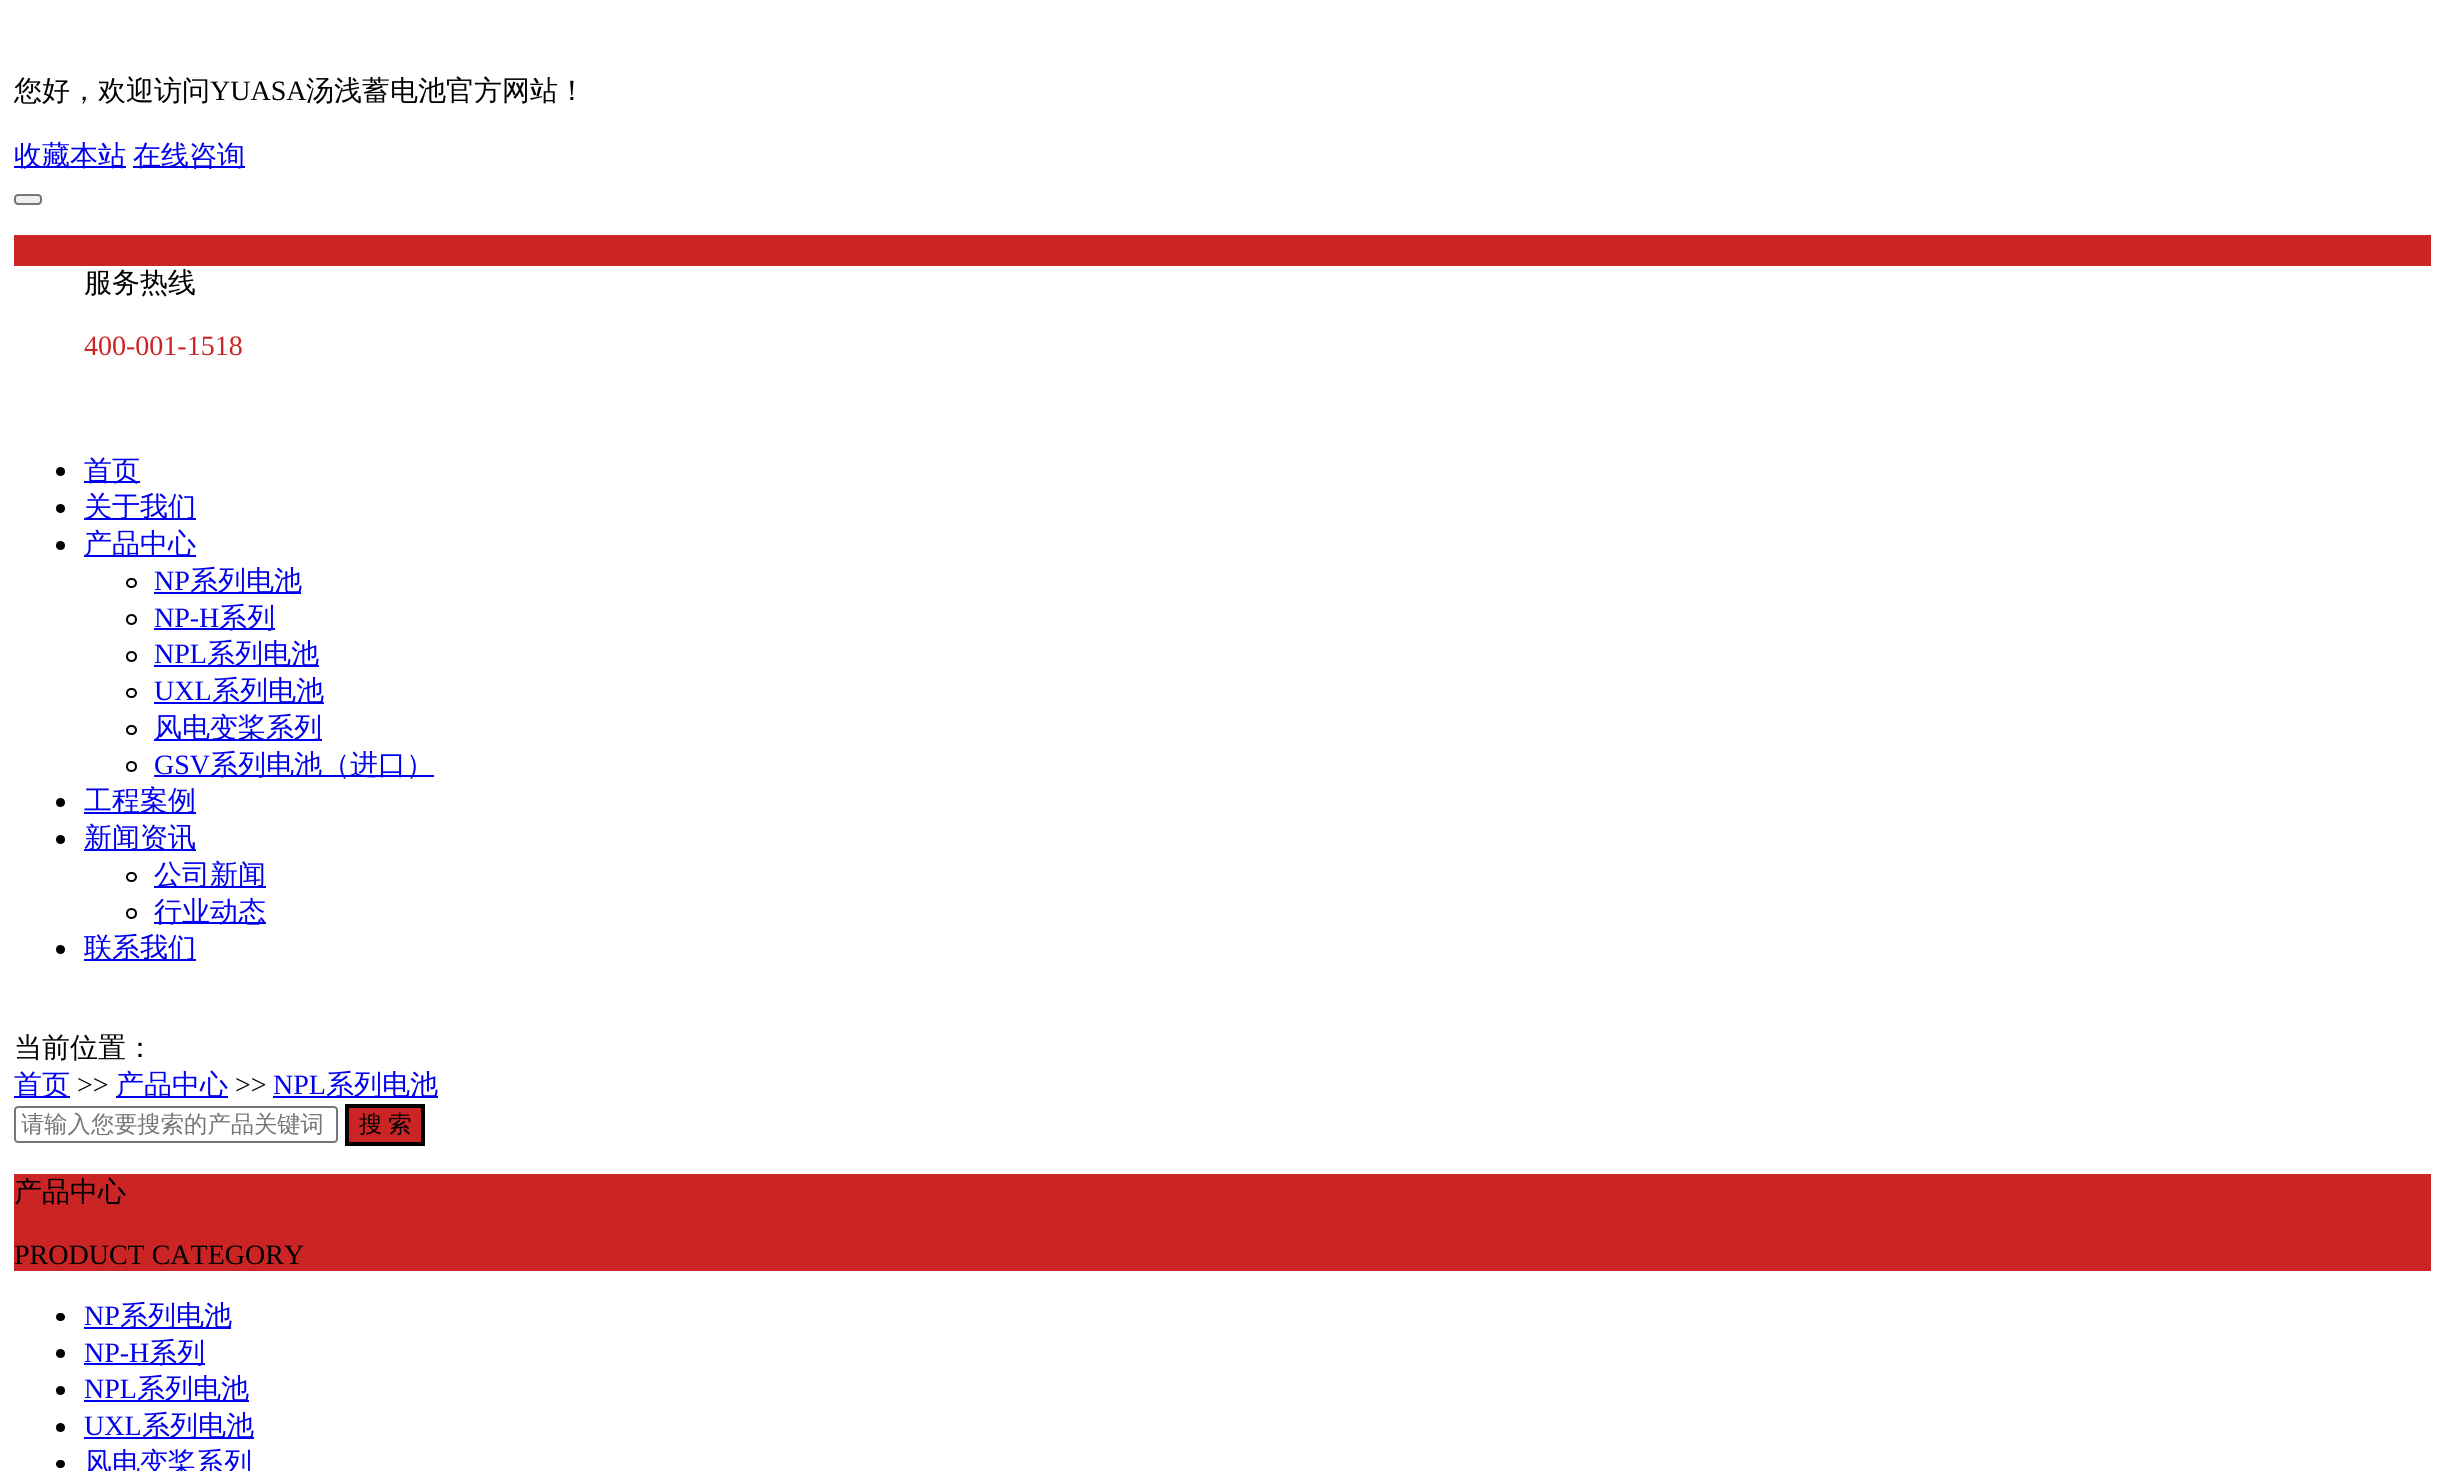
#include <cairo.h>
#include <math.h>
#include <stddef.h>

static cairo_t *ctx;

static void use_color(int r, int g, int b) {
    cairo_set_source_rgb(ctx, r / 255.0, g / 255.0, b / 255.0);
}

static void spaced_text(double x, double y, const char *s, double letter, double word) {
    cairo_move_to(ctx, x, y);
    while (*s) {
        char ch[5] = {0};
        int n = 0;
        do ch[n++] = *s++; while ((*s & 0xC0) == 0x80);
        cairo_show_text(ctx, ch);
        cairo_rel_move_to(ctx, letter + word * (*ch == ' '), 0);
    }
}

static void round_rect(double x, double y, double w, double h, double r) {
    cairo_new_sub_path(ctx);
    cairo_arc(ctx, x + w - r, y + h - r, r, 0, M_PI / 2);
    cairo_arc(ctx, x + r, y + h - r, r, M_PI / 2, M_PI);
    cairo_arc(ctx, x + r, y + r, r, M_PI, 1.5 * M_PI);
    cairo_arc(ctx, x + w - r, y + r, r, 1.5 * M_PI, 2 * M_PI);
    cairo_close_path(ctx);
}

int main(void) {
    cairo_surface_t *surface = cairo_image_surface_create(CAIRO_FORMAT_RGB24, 2444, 1471);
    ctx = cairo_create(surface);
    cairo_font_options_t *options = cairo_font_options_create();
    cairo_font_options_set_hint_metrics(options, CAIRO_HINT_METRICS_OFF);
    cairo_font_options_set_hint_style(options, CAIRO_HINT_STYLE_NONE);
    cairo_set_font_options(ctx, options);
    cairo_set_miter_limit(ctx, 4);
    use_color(255, 255, 255);
    cairo_paint(ctx);
    cairo_select_font_face(ctx, "WenQuanYi Zen Hei Medium", CAIRO_FONT_SLANT_NORMAL, CAIRO_FONT_WEIGHT_NORMAL);
    cairo_set_font_size(ctx, 28);
    use_color(0, 0, 0);
    cairo_move_to(ctx, 14, 100);
    cairo_show_text(ctx, "您好，欢迎访问");
    cairo_select_font_face(ctx, "Liberation Serif", CAIRO_FONT_SLANT_NORMAL, CAIRO_FONT_WEIGHT_NORMAL);
    cairo_move_to(ctx, 210, 100);
    cairo_show_text(ctx, "YUASA");
    cairo_select_font_face(ctx, "WenQuanYi Zen Hei Medium", CAIRO_FONT_SLANT_NORMAL, CAIRO_FONT_WEIGHT_NORMAL);
    cairo_move_to(ctx, 306, 100);
    cairo_show_text(ctx, "汤浅蓄电池官方网站！");
    use_color(0, 0, 238);
    cairo_rectangle(ctx, 14, 166, 112, 2);
    cairo_fill(ctx);
    cairo_move_to(ctx, 14, 165);
    cairo_show_text(ctx, "收藏本站");
    cairo_rectangle(ctx, 133, 166, 112, 2);
    cairo_fill(ctx);
    cairo_move_to(ctx, 133, 165);
    cairo_show_text(ctx, "在线咨询");
    use_color(239, 239, 239);
    round_rect(15, 195, 26, 9, 3);
    cairo_fill_preserve(ctx);
    use_color(118, 118, 118);
    cairo_stroke(ctx);
    use_color(202, 36, 36);
    cairo_rectangle(ctx, 14, 235, 2417, 31);
    cairo_fill(ctx);
    use_color(0, 0, 0);
    cairo_move_to(ctx, 84, 292);
    cairo_show_text(ctx, "服务热线");
    cairo_select_font_face(ctx, "Liberation Serif", CAIRO_FONT_SLANT_NORMAL, CAIRO_FONT_WEIGHT_NORMAL);
    use_color(202, 36, 36);
    cairo_move_to(ctx, 84, 355);
    cairo_show_text(ctx, "400-001-1518");
    use_color(0, 0, 0);
    cairo_new_path(ctx);
    cairo_arc(ctx, 60.5, 471.5, 4.5, 0, 2 * M_PI);
    cairo_fill(ctx);
    use_color(0, 0, 238);
    cairo_rectangle(ctx, 84, 481, 56, 2);
    cairo_fill(ctx);
    cairo_select_font_face(ctx, "WenQuanYi Zen Hei Medium", CAIRO_FONT_SLANT_NORMAL, CAIRO_FONT_WEIGHT_NORMAL);
    cairo_move_to(ctx, 84, 480);
    cairo_show_text(ctx, "首页");
    use_color(0, 0, 0);
    cairo_new_path(ctx);
    cairo_arc(ctx, 60.5, 508.5, 4.5, 0, 2 * M_PI);
    cairo_fill(ctx);
    use_color(0, 0, 238);
    cairo_rectangle(ctx, 84, 518, 112, 2);
    cairo_fill(ctx);
    cairo_move_to(ctx, 84, 516);
    cairo_show_text(ctx, "关于我们");
    use_color(0, 0, 0);
    cairo_new_path(ctx);
    cairo_arc(ctx, 60.5, 545.5, 4.5, 0, 2 * M_PI);
    cairo_fill(ctx);
    use_color(0, 0, 238);
    cairo_rectangle(ctx, 84, 555, 112, 2);
    cairo_fill(ctx);
    cairo_move_to(ctx, 84, 553);
    cairo_show_text(ctx, "产品中心");
    round_rect(127, 579, 9, 8, 4);
    use_color(0, 0, 0);
    cairo_stroke(ctx);
    cairo_select_font_face(ctx, "Liberation Serif", CAIRO_FONT_SLANT_NORMAL, CAIRO_FONT_WEIGHT_NORMAL);
    use_color(0, 0, 238);
    cairo_move_to(ctx, 154, 590);
    cairo_show_text(ctx, "NP");
    cairo_rectangle(ctx, 154, 592, 147, 2);
    cairo_fill(ctx);
    cairo_select_font_face(ctx, "WenQuanYi Zen Hei Medium", CAIRO_FONT_SLANT_NORMAL, CAIRO_FONT_WEIGHT_NORMAL);
    cairo_move_to(ctx, 190, 590);
    cairo_show_text(ctx, "系列电池");
    cairo_new_path(ctx);
    cairo_arc(ctx, 131.5, 619.5, 4.5, 0, 2 * M_PI);
    use_color(0, 0, 0);
    cairo_stroke(ctx);
    cairo_select_font_face(ctx, "Liberation Serif", CAIRO_FONT_SLANT_NORMAL, CAIRO_FONT_WEIGHT_NORMAL);
    use_color(0, 0, 238);
    cairo_move_to(ctx, 154, 627);
    cairo_show_text(ctx, "NP-H");
    cairo_rectangle(ctx, 154, 628, 121, 2);
    cairo_fill(ctx);
    cairo_select_font_face(ctx, "WenQuanYi Zen Hei Medium", CAIRO_FONT_SLANT_NORMAL, CAIRO_FONT_WEIGHT_NORMAL);
    cairo_move_to(ctx, 219, 627);
    cairo_show_text(ctx, "系列");
    cairo_new_path(ctx);
    cairo_arc(ctx, 131.5, 656.5, 4.5, 0, 2 * M_PI);
    use_color(0, 0, 0);
    cairo_stroke(ctx);
    cairo_select_font_face(ctx, "Liberation Serif", CAIRO_FONT_SLANT_NORMAL, CAIRO_FONT_WEIGHT_NORMAL);
    use_color(0, 0, 238);
    cairo_move_to(ctx, 154, 663);
    cairo_show_text(ctx, "NPL");
    cairo_rectangle(ctx, 154, 665, 165, 2);
    cairo_fill(ctx);
    cairo_select_font_face(ctx, "WenQuanYi Zen Hei Medium", CAIRO_FONT_SLANT_NORMAL, CAIRO_FONT_WEIGHT_NORMAL);
    cairo_move_to(ctx, 207, 663);
    cairo_show_text(ctx, "系列电池");
    round_rect(127, 689, 9, 8, 4);
    use_color(0, 0, 0);
    cairo_stroke(ctx);
    cairo_select_font_face(ctx, "Liberation Serif", CAIRO_FONT_SLANT_NORMAL, CAIRO_FONT_WEIGHT_NORMAL);
    use_color(0, 0, 238);
    cairo_move_to(ctx, 154, 700);
    cairo_show_text(ctx, "UXL");
    cairo_rectangle(ctx, 154, 702, 170, 2);
    cairo_fill(ctx);
    cairo_select_font_face(ctx, "WenQuanYi Zen Hei Medium", CAIRO_FONT_SLANT_NORMAL, CAIRO_FONT_WEIGHT_NORMAL);
    cairo_move_to(ctx, 212, 700);
    cairo_show_text(ctx, "系列电池");
    round_rect(127, 726, 9, 8, 4);
    use_color(0, 0, 0);
    cairo_stroke(ctx);
    use_color(0, 0, 238);
    cairo_rectangle(ctx, 154, 739, 168, 2);
    cairo_fill(ctx);
    cairo_move_to(ctx, 154, 737);
    cairo_show_text(ctx, "风电变桨系列");
    cairo_new_path(ctx);
    cairo_arc(ctx, 131.5, 766.5, 4.5, 0, 2 * M_PI);
    use_color(0, 0, 0);
    cairo_stroke(ctx);
    cairo_select_font_face(ctx, "Liberation Serif", CAIRO_FONT_SLANT_NORMAL, CAIRO_FONT_WEIGHT_NORMAL);
    use_color(0, 0, 238);
    cairo_move_to(ctx, 154, 774);
    cairo_show_text(ctx, "GSV");
    cairo_rectangle(ctx, 154, 775, 280, 2);
    cairo_fill(ctx);
    cairo_select_font_face(ctx, "WenQuanYi Zen Hei Medium", CAIRO_FONT_SLANT_NORMAL, CAIRO_FONT_WEIGHT_NORMAL);
    cairo_move_to(ctx, 210, 774);
    cairo_show_text(ctx, "系列电池（进口）");
    use_color(0, 0, 0);
    cairo_new_path(ctx);
    cairo_arc(ctx, 60.5, 802.5, 4.5, 0, 2 * M_PI);
    cairo_fill(ctx);
    use_color(0, 0, 238);
    cairo_rectangle(ctx, 84, 812, 112, 2);
    cairo_fill(ctx);
    cairo_move_to(ctx, 84, 810);
    cairo_show_text(ctx, "工程案例");
    use_color(0, 0, 0);
    cairo_new_path(ctx);
    cairo_arc(ctx, 60.5, 839.5, 4.5, 0, 2 * M_PI);
    cairo_fill(ctx);
    use_color(0, 0, 238);
    cairo_rectangle(ctx, 84, 849, 112, 2);
    cairo_fill(ctx);
    cairo_move_to(ctx, 84, 847);
    cairo_show_text(ctx, "新闻资讯");
    round_rect(127, 873, 9, 8, 4);
    use_color(0, 0, 0);
    cairo_stroke(ctx);
    use_color(0, 0, 238);
    cairo_rectangle(ctx, 154, 886, 112, 2);
    cairo_fill(ctx);
    cairo_move_to(ctx, 154, 884);
    cairo_show_text(ctx, "公司新闻");
    cairo_new_path(ctx);
    cairo_arc(ctx, 131.5, 913.5, 4.5, 0, 2 * M_PI);
    use_color(0, 0, 0);
    cairo_stroke(ctx);
    use_color(0, 0, 238);
    cairo_rectangle(ctx, 154, 922, 112, 2);
    cairo_fill(ctx);
    cairo_move_to(ctx, 154, 921);
    cairo_show_text(ctx, "行业动态");
    use_color(0, 0, 0);
    cairo_new_path(ctx);
    cairo_arc(ctx, 60.5, 949.5, 4.5, 0, 2 * M_PI);
    cairo_fill(ctx);
    use_color(0, 0, 238);
    cairo_rectangle(ctx, 84, 959, 112, 2);
    cairo_fill(ctx);
    cairo_move_to(ctx, 84, 957);
    cairo_show_text(ctx, "联系我们");
    use_color(0, 0, 0);
    cairo_move_to(ctx, 14, 1057);
    cairo_show_text(ctx, "当前位置：");
    use_color(0, 0, 238);
    cairo_rectangle(ctx, 14, 1096, 56, 2);
    cairo_fill(ctx);
    cairo_move_to(ctx, 14, 1094);
    cairo_show_text(ctx, "首页");
    cairo_select_font_face(ctx, "Liberation Serif", CAIRO_FONT_SLANT_NORMAL, CAIRO_FONT_WEIGHT_NORMAL);
    use_color(0, 0, 0);
    cairo_move_to(ctx, 77, 1094);
    cairo_show_text(ctx, ">>");
    use_color(0, 0, 238);
    cairo_rectangle(ctx, 116, 1096, 112, 2);
    cairo_fill(ctx);
    cairo_select_font_face(ctx, "WenQuanYi Zen Hei Medium", CAIRO_FONT_SLANT_NORMAL, CAIRO_FONT_WEIGHT_NORMAL);
    cairo_move_to(ctx, 116, 1094);
    cairo_show_text(ctx, "产品中心");
    cairo_select_font_face(ctx, "Liberation Serif", CAIRO_FONT_SLANT_NORMAL, CAIRO_FONT_WEIGHT_NORMAL);
    use_color(0, 0, 0);
    cairo_move_to(ctx, 235, 1094);
    cairo_show_text(ctx, ">>");
    use_color(0, 0, 238);
    cairo_move_to(ctx, 273, 1094);
    cairo_show_text(ctx, "NPL");
    cairo_rectangle(ctx, 273, 1096, 165, 2);
    cairo_fill(ctx);
    cairo_select_font_face(ctx, "WenQuanYi Zen Hei Medium", CAIRO_FONT_SLANT_NORMAL, CAIRO_FONT_WEIGHT_NORMAL);
    cairo_move_to(ctx, 326, 1094);
    cairo_show_text(ctx, "系列电池");
    round_rect(15, 1107, 322, 35, 3);
    use_color(118, 118, 118);
    cairo_stroke(ctx);
    cairo_set_font_size(ctx, 23.3);
    use_color(117, 117, 117);
    cairo_move_to(ctx, 21, 1132);
    cairo_show_text(ctx, "请输入您要搜索的产品关键词");
    use_color(202, 36, 36);
    cairo_rectangle(ctx, 347, 1106, 76, 38);
    cairo_fill_preserve(ctx);
    use_color(0, 0, 0);
    cairo_set_line_width(ctx, 4);
    cairo_stroke(ctx);
    spaced_text(359, 1132, "搜 索", 0, -1);
    use_color(202, 36, 36);
    cairo_rectangle(ctx, 14, 1174, 2417, 97);
    cairo_fill(ctx);
    cairo_set_font_size(ctx, 28);
    use_color(0, 0, 0);
    cairo_move_to(ctx, 14, 1201);
    cairo_show_text(ctx, "产品中心");
    cairo_select_font_face(ctx, "Liberation Serif", CAIRO_FONT_SLANT_NORMAL, CAIRO_FONT_WEIGHT_NORMAL);
    cairo_move_to(ctx, 14, 1264);
    cairo_show_text(ctx, "PRODUCT CATEGORY");
    round_rect(56, 1313, 9, 8, 4);
    cairo_fill(ctx);
    use_color(0, 0, 238);
    cairo_move_to(ctx, 84, 1325);
    cairo_show_text(ctx, "NP");
    cairo_rectangle(ctx, 84, 1327, 147, 2);
    cairo_fill(ctx);
    cairo_select_font_face(ctx, "WenQuanYi Zen Hei Medium", CAIRO_FONT_SLANT_NORMAL, CAIRO_FONT_WEIGHT_NORMAL);
    cairo_move_to(ctx, 120, 1325);
    cairo_show_text(ctx, "系列电池");
    use_color(0, 0, 0);
    cairo_new_path(ctx);
    cairo_arc(ctx, 60.5, 1353.5, 4.5, 0, 2 * M_PI);
    cairo_fill(ctx);
    cairo_select_font_face(ctx, "Liberation Serif", CAIRO_FONT_SLANT_NORMAL, CAIRO_FONT_WEIGHT_NORMAL);
    use_color(0, 0, 238);
    cairo_move_to(ctx, 84, 1362);
    cairo_show_text(ctx, "NP-H");
    cairo_rectangle(ctx, 84, 1363, 121, 2);
    cairo_fill(ctx);
    cairo_select_font_face(ctx, "WenQuanYi Zen Hei Medium", CAIRO_FONT_SLANT_NORMAL, CAIRO_FONT_WEIGHT_NORMAL);
    cairo_move_to(ctx, 149, 1362);
    cairo_show_text(ctx, "系列");
    use_color(0, 0, 0);
    cairo_new_path(ctx);
    cairo_arc(ctx, 60.5, 1390.5, 4.5, 0, 2 * M_PI);
    cairo_fill(ctx);
    cairo_select_font_face(ctx, "Liberation Serif", CAIRO_FONT_SLANT_NORMAL, CAIRO_FONT_WEIGHT_NORMAL);
    use_color(0, 0, 238);
    cairo_move_to(ctx, 84, 1398);
    cairo_show_text(ctx, "NPL");
    cairo_rectangle(ctx, 84, 1400, 165, 2);
    cairo_fill(ctx);
    cairo_select_font_face(ctx, "WenQuanYi Zen Hei Medium", CAIRO_FONT_SLANT_NORMAL, CAIRO_FONT_WEIGHT_NORMAL);
    cairo_move_to(ctx, 137, 1398);
    cairo_show_text(ctx, "系列电池");
    use_color(0, 0, 0);
    cairo_new_path(ctx);
    cairo_arc(ctx, 60.5, 1427.5, 4.5, 0, 2 * M_PI);
    cairo_fill(ctx);
    cairo_select_font_face(ctx, "Liberation Serif", CAIRO_FONT_SLANT_NORMAL, CAIRO_FONT_WEIGHT_NORMAL);
    use_color(0, 0, 238);
    cairo_move_to(ctx, 84, 1435);
    cairo_show_text(ctx, "UXL");
    cairo_rectangle(ctx, 84, 1437, 170, 2);
    cairo_fill(ctx);
    cairo_select_font_face(ctx, "WenQuanYi Zen Hei Medium", CAIRO_FONT_SLANT_NORMAL, CAIRO_FONT_WEIGHT_NORMAL);
    cairo_move_to(ctx, 142, 1435);
    cairo_show_text(ctx, "系列电池");
    use_color(0, 0, 0);
    round_rect(56, 1460, 9, 8, 4);
    cairo_fill(ctx);
    use_color(0, 0, 238);
    cairo_move_to(ctx, 84, 1472);
    cairo_show_text(ctx, "风电变桨系列");
    cairo_surface_write_to_png(surface, "result.png");
    cairo_font_options_destroy(options);
    cairo_destroy(ctx);
    cairo_surface_destroy(surface);
    return 0;
}
